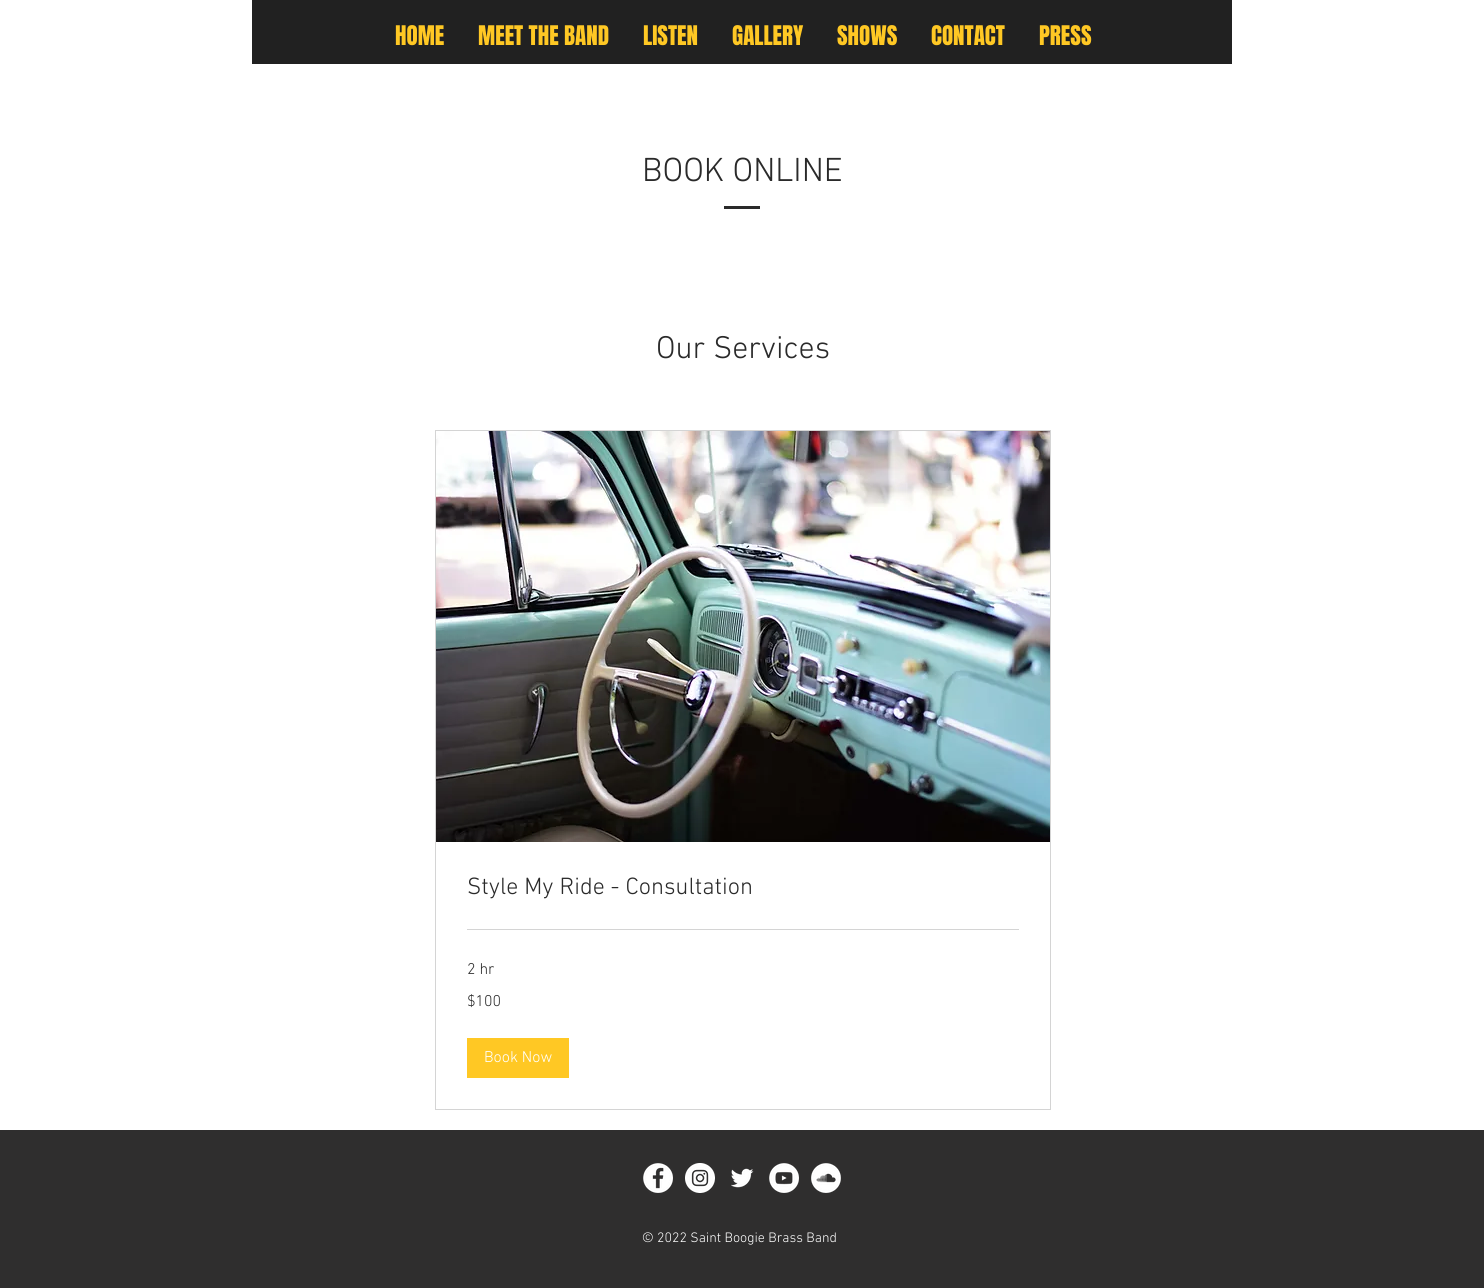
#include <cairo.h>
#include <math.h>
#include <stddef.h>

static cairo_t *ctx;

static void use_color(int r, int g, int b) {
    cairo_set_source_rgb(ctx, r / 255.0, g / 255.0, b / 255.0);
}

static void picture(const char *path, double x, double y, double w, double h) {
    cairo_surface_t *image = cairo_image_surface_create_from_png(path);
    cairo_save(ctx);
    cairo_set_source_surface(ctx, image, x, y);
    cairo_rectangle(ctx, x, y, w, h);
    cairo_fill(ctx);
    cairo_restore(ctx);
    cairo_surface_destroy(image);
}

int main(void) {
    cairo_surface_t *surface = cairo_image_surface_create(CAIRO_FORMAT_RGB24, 1484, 1288);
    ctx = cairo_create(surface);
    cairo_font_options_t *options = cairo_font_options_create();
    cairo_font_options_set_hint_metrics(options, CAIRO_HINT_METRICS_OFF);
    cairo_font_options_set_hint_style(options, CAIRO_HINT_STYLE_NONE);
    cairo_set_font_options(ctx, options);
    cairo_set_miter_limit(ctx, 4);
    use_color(255, 255, 255);
    cairo_paint(ctx);
    use_color(33, 33, 33);
    cairo_rectangle(ctx, 252, 0, 980, 64);
    cairo_fill(ctx);
    cairo_select_font_face(ctx, "Anton", CAIRO_FONT_SLANT_NORMAL, CAIRO_FONT_WEIGHT_NORMAL);
    cairo_set_font_size(ctx, 23);
    use_color(255, 200, 36);
    cairo_move_to(ctx, 395, 45);
    cairo_show_text(ctx, "HOME");
    cairo_move_to(ctx, 478, 45);
    cairo_show_text(ctx, "MEET THE BAND");
    cairo_move_to(ctx, 643, 45);
    cairo_show_text(ctx, "LISTEN");
    cairo_move_to(ctx, 732, 45);
    cairo_show_text(ctx, "GALLERY");
    cairo_move_to(ctx, 837, 45);
    cairo_show_text(ctx, "SHOWS");
    cairo_move_to(ctx, 931, 45);
    cairo_show_text(ctx, "CONTACT");
    cairo_move_to(ctx, 1039, 45);
    cairo_show_text(ctx, "PRESS");
    cairo_select_font_face(ctx, "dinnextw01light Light", CAIRO_FONT_SLANT_NORMAL, CAIRO_FONT_WEIGHT_NORMAL);
    cairo_set_font_size(ctx, 34);
    use_color(42, 42, 42);
    cairo_move_to(ctx, 642, 181);
    cairo_show_text(ctx, "BOOK ONLINE");
    cairo_rectangle(ctx, 724, 206, 36, 3);
    cairo_fill(ctx);
    cairo_set_font_size(ctx, 32);
    cairo_move_to(ctx, 656, 358);
    cairo_show_text(ctx, "Our Services");
    cairo_rectangle(ctx, 435.5, 430.5, 615, 679);
    use_color(212, 212, 212);
    cairo_set_line_width(ctx, 1);
    cairo_stroke(ctx);
    picture("img1.png", 436, 431, 614, 411);
    cairo_set_font_size(ctx, 24);
    use_color(42, 42, 42);
    cairo_move_to(ctx, 467, 894);
    cairo_show_text(ctx, "Style My Ride - Consultation");
    use_color(212, 212, 212);
    cairo_rectangle(ctx, 467, 929, 552, 1);
    cairo_fill(ctx);
    cairo_set_font_size(ctx, 16);
    use_color(42, 42, 42);
    cairo_move_to(ctx, 467, 974);
    cairo_show_text(ctx, "2 hr");
    cairo_move_to(ctx, 467, 1006);
    cairo_show_text(ctx, "$100");
    use_color(255, 200, 36);
    cairo_rectangle(ctx, 467, 1038, 102, 40);
    cairo_fill(ctx);
    use_color(255, 255, 255);
    cairo_move_to(ctx, 484, 1062);
    cairo_show_text(ctx, "Book Now");
    use_color(47, 46, 46);
    cairo_rectangle(ctx, 0, 1130, 1484, 158);
    cairo_fill(ctx);
    picture("img2.png", 643, 1163, 30, 30);
    picture("img3.png", 685, 1163, 30, 30);
    picture("img4.png", 731, 1168, 23, 20);
    picture("img5.png", 769, 1163, 30, 30);
    picture("img6.png", 811, 1163, 30, 30);
    cairo_set_font_size(ctx, 14);
    use_color(255, 255, 255);
    cairo_move_to(ctx, 642, 1242);
    cairo_show_text(ctx, "© 2022 Saint Boogie Brass Band");
    cairo_surface_write_to_png(surface, "result.png");
    cairo_font_options_destroy(options);
    cairo_destroy(ctx);
    cairo_surface_destroy(surface);
    return 0;
}
